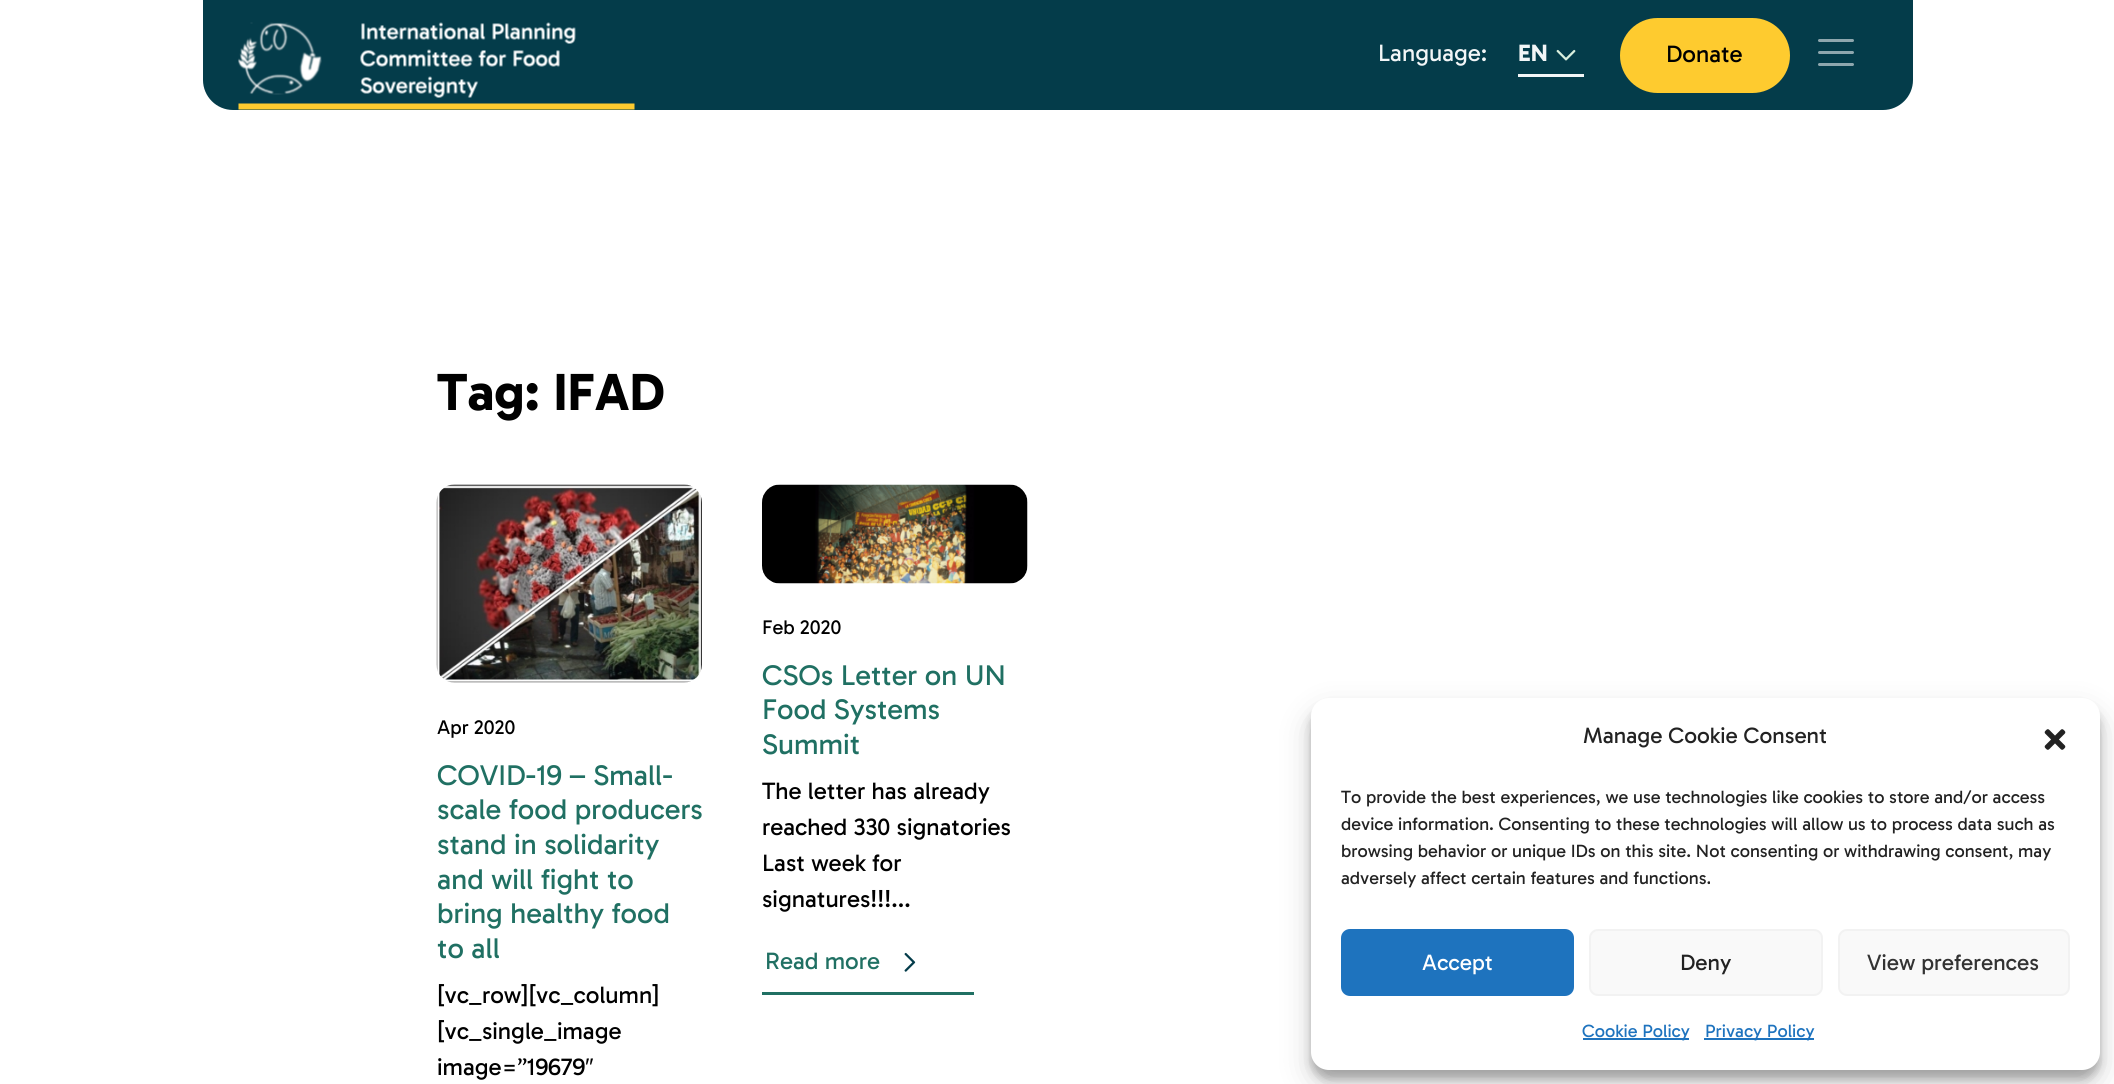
#include <cairo.h>
#include <math.h>
#include <stddef.h>

static cairo_t *ctx;

static void use_color(int r, int g, int b) {
    cairo_set_source_rgb(ctx, r / 255.0, g / 255.0, b / 255.0);
}

static void round_rect(double x, double y, double w, double h, double r) {
    cairo_new_sub_path(ctx);
    cairo_arc(ctx, x + w - r, y + h - r, r, 0, M_PI / 2);
    cairo_arc(ctx, x + r, y + h - r, r, M_PI / 2, M_PI);
    cairo_arc(ctx, x + r, y + r, r, M_PI, 1.5 * M_PI);
    cairo_arc(ctx, x + w - r, y + r, r, 1.5 * M_PI, 2 * M_PI);
    cairo_close_path(ctx);
}

static void shadow(double x, double y, double w, double h, double r, double blur, double alpha) {
    cairo_push_group_with_content(ctx, CAIRO_CONTENT_ALPHA);
    cairo_set_operator(ctx, CAIRO_OPERATOR_SOURCE);
    for (int i = 15; i >= -15 && fmin(w, h) + blur * i / 3 > 0; i -= 2) {
        double e = blur * i / 6;
        cairo_set_source_rgba(ctx, 0, 0, 0, alpha * erfc((i - 1) / 8.5) / 2);
        round_rect(x - e, y - e, w + 2 * e, h + 2 * e, fmax(0, fmin(r + e + blur * .6, fmin(w, h) / 2 + e)));
        cairo_fill(ctx);
    }
    cairo_pattern_t *soft = cairo_pop_group(ctx);
    cairo_mask(ctx, soft);
    cairo_pattern_destroy(soft);
}

static void picture(const char *path, double x, double y, double w, double h) {
    cairo_surface_t *image = cairo_image_surface_create_from_png(path);
    cairo_save(ctx);
    cairo_set_source_surface(ctx, image, x, y);
    cairo_rectangle(ctx, x, y, w, h);
    cairo_fill(ctx);
    cairo_restore(ctx);
    cairo_surface_destroy(image);
}

int main(void) {
    cairo_surface_t *surface = cairo_image_surface_create(CAIRO_FORMAT_RGB24, 2114, 1084);
    ctx = cairo_create(surface);
    cairo_font_options_t *options = cairo_font_options_create();
    cairo_font_options_set_hint_metrics(options, CAIRO_HINT_METRICS_OFF);
    cairo_font_options_set_hint_style(options, CAIRO_HINT_STYLE_NONE);
    cairo_set_font_options(ctx, options);
    cairo_set_miter_limit(ctx, 4);
    use_color(255, 255, 255);
    cairo_paint(ctx);
    use_color(4, 60, 74);
    cairo_new_path(ctx);
    cairo_move_to(ctx, 203, 0);
    cairo_line_to(ctx, 1913, 0);
    cairo_line_to(ctx, 1913, 80);
    cairo_curve_to(ctx, 1913, 96.5, 1899.5, 110, 1883, 110);
    cairo_line_to(ctx, 233, 110);
    cairo_curve_to(ctx, 216.5, 110, 203, 96.5, 203, 80);
    cairo_close_path(ctx);
    cairo_fill(ctx);
    picture("img1.png", 238, 22, 397, 88);
    cairo_select_font_face(ctx, "Gabarito", CAIRO_FONT_SLANT_NORMAL, CAIRO_FONT_WEIGHT_NORMAL);
    cairo_set_font_size(ctx, 24);
    use_color(242, 246, 247);
    cairo_move_to(ctx, 1378, 61);
    cairo_show_text(ctx, "Language:");
    cairo_rectangle(ctx, 1518, 74, 66, 3);
    cairo_fill(ctx);
    cairo_select_font_face(ctx, "Gabarito", CAIRO_FONT_SLANT_NORMAL, CAIRO_FONT_WEIGHT_BOLD);
    cairo_move_to(ctx, 1518, 61);
    cairo_show_text(ctx, "EN");
    picture("img2.png", 1556, 49, 20, 12);
    use_color(254, 203, 47);
    round_rect(1621, 19, 168, 73, 36.5);
    cairo_fill_preserve(ctx);
    cairo_stroke(ctx);
    cairo_select_font_face(ctx, "Gabarito", CAIRO_FONT_SLANT_NORMAL, CAIRO_FONT_WEIGHT_NORMAL);
    use_color(0, 0, 0);
    cairo_move_to(ctx, 1666, 62);
    cairo_show_text(ctx, "Donate");
    cairo_new_path(ctx);
    cairo_move_to(ctx, 1852.5, 64.5);
    cairo_line_to(ctx, 1819.5, 64.5);
    cairo_move_to(ctx, 1852.5, 52.5);
    cairo_line_to(ctx, 1819.5, 52.5);
    cairo_move_to(ctx, 1852.5, 40.5);
    cairo_line_to(ctx, 1819.5, 40.5);
    use_color(142, 167, 174);
    cairo_set_line_width(ctx, 3);
    cairo_set_line_cap(ctx, CAIRO_LINE_CAP_ROUND);
    cairo_stroke(ctx);
    cairo_select_font_face(ctx, "Gabarito", CAIRO_FONT_SLANT_NORMAL, CAIRO_FONT_WEIGHT_BOLD);
    cairo_set_font_size(ctx, 53);
    use_color(0, 0, 0);
    cairo_move_to(ctx, 437, 410);
    cairo_show_text(ctx, "Tag: IFAD");
    picture("img3.png", 436, 484, 266, 199);
    cairo_select_font_face(ctx, "Gabarito", CAIRO_FONT_SLANT_NORMAL, CAIRO_FONT_WEIGHT_NORMAL);
    cairo_set_font_size(ctx, 20);
    cairo_move_to(ctx, 437, 734);
    cairo_show_text(ctx, "Apr 2020");
    cairo_set_font_size(ctx, 28.9);
    use_color(32, 112, 99);
    cairo_move_to(ctx, 437, 785);
    cairo_show_text(ctx, "COVID-19 – Small-");
    cairo_move_to(ctx, 437, 819);
    cairo_show_text(ctx, "scale food producers");
    cairo_move_to(ctx, 437, 854);
    cairo_show_text(ctx, "stand in solidarity");
    cairo_move_to(ctx, 437, 889);
    cairo_show_text(ctx, "and will fight to");
    cairo_move_to(ctx, 437, 923);
    cairo_show_text(ctx, "bring healthy food");
    cairo_move_to(ctx, 437, 958);
    cairo_show_text(ctx, "to all");
    cairo_set_font_size(ctx, 24);
    use_color(0, 0, 0);
    cairo_move_to(ctx, 437, 1003);
    cairo_show_text(ctx, "[vc_row][vc_column]");
    cairo_move_to(ctx, 437, 1039);
    cairo_show_text(ctx, "[vc_single_image");
    cairo_move_to(ctx, 437, 1075);
    cairo_show_text(ctx, "image=”19679");
    cairo_select_font_face(ctx, "Liberation Sans", CAIRO_FONT_SLANT_NORMAL, CAIRO_FONT_WEIGHT_NORMAL);
    cairo_move_to(ctx, 585, 1075);
    cairo_show_text(ctx, "″");
    picture("img4.png", 762, 484, 266, 100);
    cairo_select_font_face(ctx, "Gabarito", CAIRO_FONT_SLANT_NORMAL, CAIRO_FONT_WEIGHT_NORMAL);
    cairo_set_font_size(ctx, 20);
    cairo_move_to(ctx, 762, 634);
    cairo_show_text(ctx, "Feb 2020");
    cairo_set_font_size(ctx, 28.9);
    use_color(32, 112, 99);
    cairo_move_to(ctx, 762, 685);
    cairo_show_text(ctx, "CSOs Letter on UN");
    cairo_move_to(ctx, 762, 719);
    cairo_show_text(ctx, "Food Systems");
    cairo_move_to(ctx, 762, 754);
    cairo_show_text(ctx, "Summit");
    cairo_set_font_size(ctx, 24);
    use_color(0, 0, 0);
    cairo_move_to(ctx, 762, 799);
    cairo_show_text(ctx, "The letter has already");
    cairo_move_to(ctx, 762, 835);
    cairo_show_text(ctx, "reached 330 signatories");
    cairo_move_to(ctx, 762, 871);
    cairo_show_text(ctx, "Last week for");
    cairo_move_to(ctx, 762, 907);
    cairo_show_text(ctx, "signatures!!!...");
    use_color(32, 112, 99);
    cairo_rectangle(ctx, 762, 992, 212, 3);
    cairo_fill(ctx);
    cairo_move_to(ctx, 765, 969);
    cairo_show_text(ctx, "Read more");
    picture("img5.png", 904, 952, 12, 20);
    use_color(0, 0, 0);
    shadow(1311, 707, 789, 372, 18, 4.5, 0.23);
    shadow(1311, 713, 789, 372, 18, 15, 0.19);
    use_color(255, 255, 255);
    round_rect(1311, 698, 789, 372, 18);
    cairo_fill(ctx);
    cairo_set_font_size(ctx, 22.5);
    use_color(34, 34, 34);
    cairo_move_to(ctx, 1583, 743);
    cairo_show_text(ctx, "Manage Cookie Consent");
    picture("img6.png", 2044, 729, 22, 21);
    cairo_set_font_size(ctx, 18);
    cairo_move_to(ctx, 1341, 803);
    cairo_show_text(ctx, "To provide the best experiences, we use technologies like cookies to store and/or access");
    cairo_move_to(ctx, 1341, 830);
    cairo_show_text(ctx, "device information. Consenting to these technologies will allow us to process data such as");
    cairo_move_to(ctx, 1341, 857);
    cairo_show_text(ctx, "browsing behavior or unique IDs on this site. Not consenting or withdrawing consent, may");
    cairo_move_to(ctx, 1341, 884);
    cairo_show_text(ctx, "adversely affect certain features and functions.");
    use_color(30, 115, 190);
    round_rect(1342, 930, 231, 65, 8);
    cairo_fill_preserve(ctx);
    cairo_set_line_width(ctx, 2);
    cairo_set_line_cap(ctx, CAIRO_LINE_CAP_BUTT);
    cairo_stroke(ctx);
    cairo_set_font_size(ctx, 22.5);
    use_color(255, 255, 255);
    cairo_move_to(ctx, 1422, 970);
    cairo_show_text(ctx, "Accept");
    use_color(249, 249, 249);
    round_rect(1590, 930, 232, 65, 8);
    cairo_fill_preserve(ctx);
    use_color(242, 242, 242);
    cairo_stroke(ctx);
    use_color(34, 34, 34);
    cairo_move_to(ctx, 1680, 970);
    cairo_show_text(ctx, "Deny");
    use_color(249, 249, 249);
    round_rect(1839, 930, 230, 65, 8);
    cairo_fill_preserve(ctx);
    use_color(242, 242, 242);
    cairo_stroke(ctx);
    use_color(51, 51, 51);
    cairo_move_to(ctx, 1867, 970);
    cairo_show_text(ctx, "View preferences");
    use_color(30, 115, 190);
    cairo_rectangle(ctx, 1583, 1038, 106, 2);
    cairo_fill(ctx);
    cairo_set_font_size(ctx, 18);
    cairo_move_to(ctx, 1582, 1037);
    cairo_show_text(ctx, "Cookie Policy");
    cairo_rectangle(ctx, 1704, 1038, 110, 2);
    cairo_fill(ctx);
    cairo_move_to(ctx, 1705, 1037);
    cairo_show_text(ctx, "Privacy Policy");
    cairo_surface_write_to_png(surface, "result.png");
    cairo_font_options_destroy(options);
    cairo_destroy(ctx);
    cairo_surface_destroy(surface);
    return 0;
}
